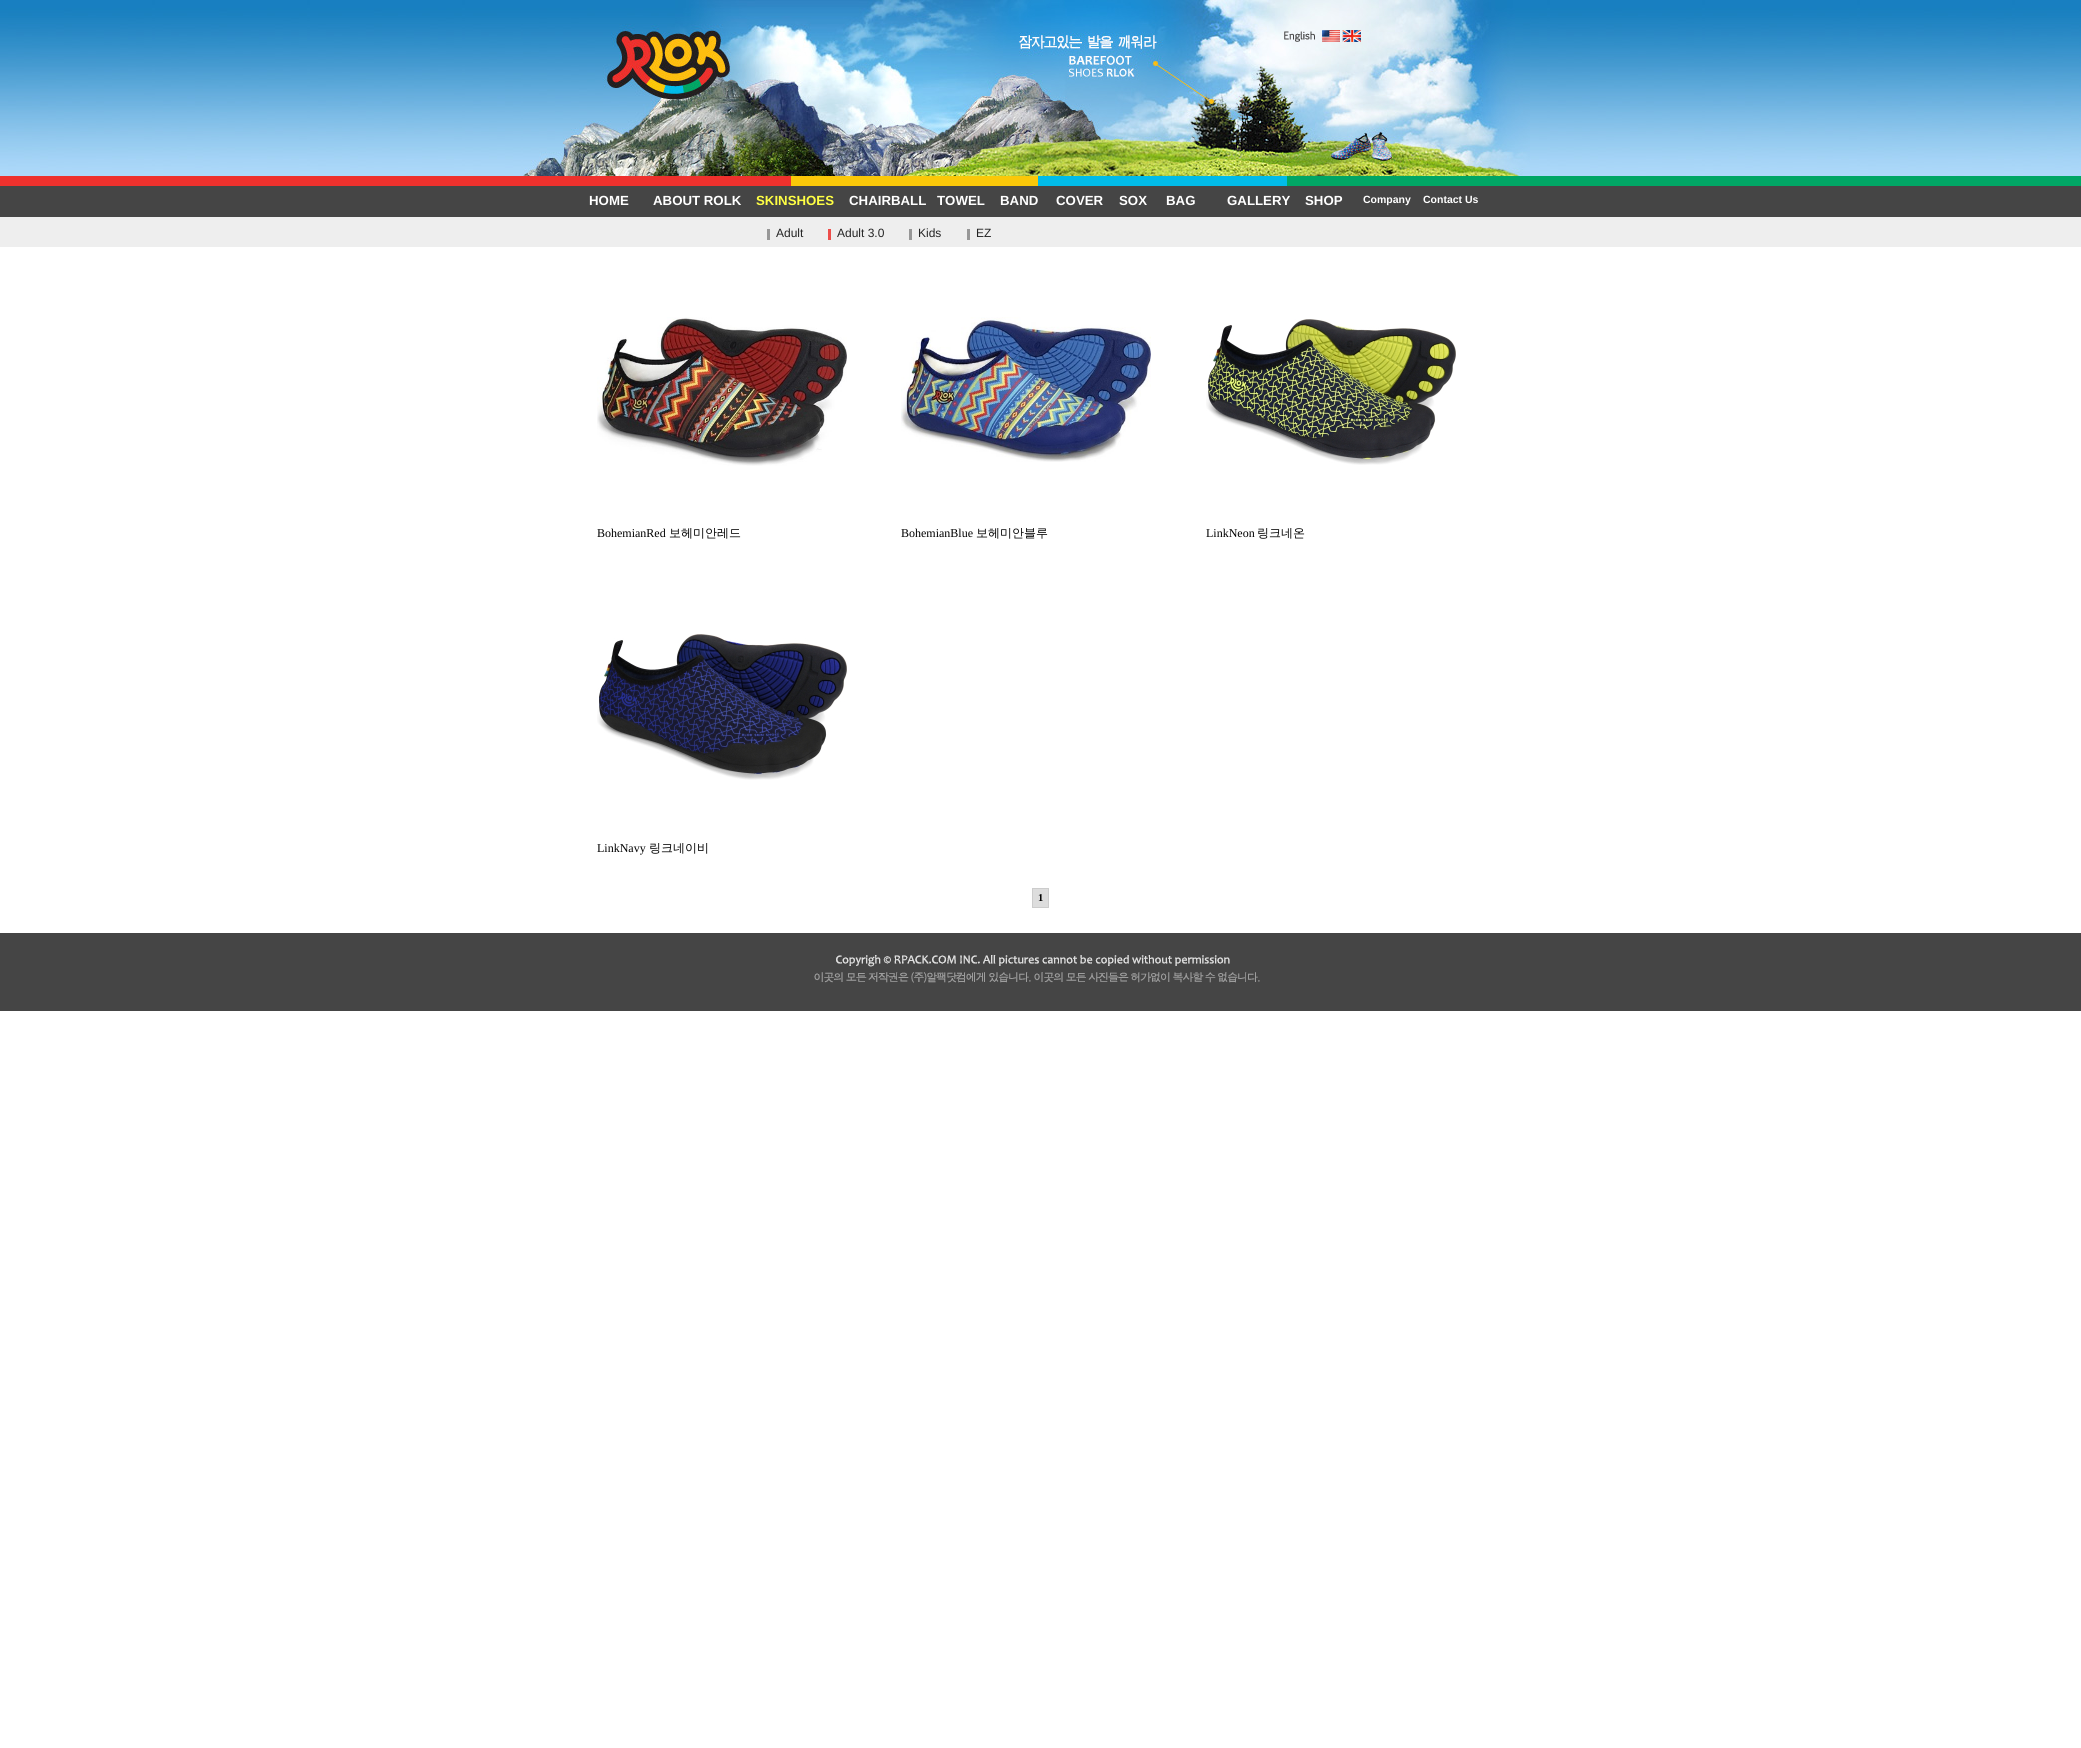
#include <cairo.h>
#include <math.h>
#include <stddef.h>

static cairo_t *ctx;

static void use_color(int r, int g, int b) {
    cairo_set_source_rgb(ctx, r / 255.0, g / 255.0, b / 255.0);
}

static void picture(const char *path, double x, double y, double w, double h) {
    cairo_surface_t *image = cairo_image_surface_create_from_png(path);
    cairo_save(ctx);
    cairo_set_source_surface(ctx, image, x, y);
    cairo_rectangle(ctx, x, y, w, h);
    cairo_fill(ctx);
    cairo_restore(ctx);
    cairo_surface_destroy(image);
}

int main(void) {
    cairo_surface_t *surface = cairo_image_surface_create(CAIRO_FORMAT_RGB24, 2081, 1748);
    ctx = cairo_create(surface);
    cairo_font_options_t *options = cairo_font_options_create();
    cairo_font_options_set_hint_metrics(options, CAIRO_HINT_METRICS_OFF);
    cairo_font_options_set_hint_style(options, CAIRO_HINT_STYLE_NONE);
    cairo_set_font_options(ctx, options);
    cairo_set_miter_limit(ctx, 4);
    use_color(255, 255, 255);
    cairo_paint(ctx);
    picture("img1.png", 0, 0, 2081, 176);
    picture("img2.png", 523, 0, 1007, 176);
    picture("img3.png", 1284, 30, 77, 12);
    use_color(238, 49, 45);
    cairo_rectangle(ctx, 0, 176, 584, 10);
    cairo_fill(ctx);
    picture("img4.png", 584, 176, 913, 10);
    use_color(0, 166, 101);
    cairo_rectangle(ctx, 1497, 176, 584, 10);
    cairo_fill(ctx);
    use_color(69, 69, 69);
    cairo_rectangle(ctx, 0, 186, 2081, 31);
    cairo_fill(ctx);
    cairo_select_font_face(ctx, "Liberation Sans", CAIRO_FONT_SLANT_NORMAL, CAIRO_FONT_WEIGHT_BOLD);
    cairo_set_font_size(ctx, 13.25);
    use_color(255, 255, 255);
    cairo_move_to(ctx, 589, 205);
    cairo_show_text(ctx, "HOME");
    cairo_move_to(ctx, 653, 205);
    cairo_show_text(ctx, "ABOUT ROLK");
    use_color(255, 255, 68);
    cairo_move_to(ctx, 756, 205);
    cairo_show_text(ctx, "SKINSHOES");
    use_color(238, 238, 238);
    cairo_rectangle(ctx, 0, 217, 2081, 30);
    cairo_fill(ctx);
    use_color(151, 151, 151);
    cairo_rectangle(ctx, 767, 229, 3, 11);
    cairo_fill(ctx);
    cairo_select_font_face(ctx, "Liberation Sans", CAIRO_FONT_SLANT_NORMAL, CAIRO_FONT_WEIGHT_NORMAL);
    cairo_set_font_size(ctx, 12);
    use_color(36, 36, 36);
    cairo_move_to(ctx, 776, 237);
    cairo_show_text(ctx, "Adult");
    use_color(237, 77, 74);
    cairo_rectangle(ctx, 828, 229, 3, 11);
    cairo_fill(ctx);
    use_color(36, 36, 36);
    cairo_move_to(ctx, 837, 237);
    cairo_show_text(ctx, "Adult 3.0");
    use_color(151, 151, 151);
    cairo_rectangle(ctx, 909, 229, 3, 11);
    cairo_fill(ctx);
    use_color(36, 36, 36);
    cairo_move_to(ctx, 918, 237);
    cairo_show_text(ctx, "Kids");
    use_color(151, 151, 151);
    cairo_rectangle(ctx, 967, 229, 3, 11);
    cairo_fill(ctx);
    use_color(36, 36, 36);
    cairo_move_to(ctx, 976, 237);
    cairo_show_text(ctx, "EZ");
    cairo_select_font_face(ctx, "Liberation Sans", CAIRO_FONT_SLANT_NORMAL, CAIRO_FONT_WEIGHT_BOLD);
    cairo_set_font_size(ctx, 13.25);
    use_color(255, 255, 255);
    cairo_move_to(ctx, 849, 205);
    cairo_show_text(ctx, "CHAIRBALL");
    cairo_move_to(ctx, 937, 205);
    cairo_show_text(ctx, "TOWEL");
    cairo_move_to(ctx, 1000, 205);
    cairo_show_text(ctx, "BAND");
    cairo_move_to(ctx, 1056, 205);
    cairo_show_text(ctx, "COVER");
    cairo_move_to(ctx, 1119, 205);
    cairo_show_text(ctx, "SOX");
    cairo_move_to(ctx, 1166, 205);
    cairo_show_text(ctx, "BAG");
    cairo_move_to(ctx, 1227, 205);
    cairo_show_text(ctx, "GALLERY");
    cairo_move_to(ctx, 1305, 205);
    cairo_show_text(ctx, "SHOP");
    cairo_set_font_size(ctx, 10.5);
    cairo_move_to(ctx, 1363, 203);
    cairo_show_text(ctx, "Company");
    cairo_move_to(ctx, 1423, 203);
    cairo_show_text(ctx, "Contact Us");
    picture("img5.png", 597, 317, 250, 149);
    cairo_select_font_face(ctx, "Liberation Serif", CAIRO_FONT_SLANT_NORMAL, CAIRO_FONT_WEIGHT_NORMAL);
    cairo_set_font_size(ctx, 12);
    use_color(0, 0, 0);
    cairo_move_to(ctx, 597, 537);
    cairo_show_text(ctx, "BohemianRed");
    cairo_select_font_face(ctx, "WenQuanYi Zen Hei Medium", CAIRO_FONT_SLANT_NORMAL, CAIRO_FONT_WEIGHT_NORMAL);
    cairo_move_to(ctx, 669, 537);
    cairo_show_text(ctx, "보헤미안레드");
    picture("img6.png", 901, 317, 250, 145);
    cairo_select_font_face(ctx, "Liberation Serif", CAIRO_FONT_SLANT_NORMAL, CAIRO_FONT_WEIGHT_NORMAL);
    cairo_move_to(ctx, 901, 537);
    cairo_show_text(ctx, "BohemianBlue");
    cairo_select_font_face(ctx, "WenQuanYi Zen Hei Medium", CAIRO_FONT_SLANT_NORMAL, CAIRO_FONT_WEIGHT_NORMAL);
    cairo_move_to(ctx, 976, 537);
    cairo_show_text(ctx, "보헤미안블루");
    picture("img7.png", 1206, 319, 250, 146);
    cairo_select_font_face(ctx, "Liberation Serif", CAIRO_FONT_SLANT_NORMAL, CAIRO_FONT_WEIGHT_NORMAL);
    cairo_move_to(ctx, 1206, 537);
    cairo_show_text(ctx, "LinkNeon");
    cairo_select_font_face(ctx, "WenQuanYi Zen Hei Medium", CAIRO_FONT_SLANT_NORMAL, CAIRO_FONT_WEIGHT_NORMAL);
    cairo_move_to(ctx, 1257, 537);
    cairo_show_text(ctx, "링크네온");
    picture("img8.png", 597, 634, 250, 146);
    cairo_select_font_face(ctx, "Liberation Serif", CAIRO_FONT_SLANT_NORMAL, CAIRO_FONT_WEIGHT_NORMAL);
    cairo_move_to(ctx, 597, 852);
    cairo_show_text(ctx, "LinkNavy");
    cairo_select_font_face(ctx, "WenQuanYi Zen Hei Medium", CAIRO_FONT_SLANT_NORMAL, CAIRO_FONT_WEIGHT_NORMAL);
    cairo_move_to(ctx, 649, 852);
    cairo_show_text(ctx, "링크네이비");
    use_color(221, 221, 221);
    cairo_rectangle(ctx, 1032.5, 888.5, 16, 19);
    cairo_fill_preserve(ctx);
    use_color(204, 204, 204);
    cairo_set_line_width(ctx, 1);
    cairo_stroke(ctx);
    cairo_select_font_face(ctx, "Liberation Serif", CAIRO_FONT_SLANT_NORMAL, CAIRO_FONT_WEIGHT_BOLD);
    cairo_set_font_size(ctx, 10.5);
    use_color(0, 0, 0);
    cairo_move_to(ctx, 1038, 901);
    cairo_show_text(ctx, "1");
    use_color(69, 69, 69);
    cairo_rectangle(ctx, 0, 933, 2081, 78);
    cairo_fill(ctx);
    picture("img9.png", 814, 955, 446, 28);
    cairo_surface_write_to_png(surface, "result.png");
    cairo_font_options_destroy(options);
    cairo_destroy(ctx);
    cairo_surface_destroy(surface);
    return 0;
}
